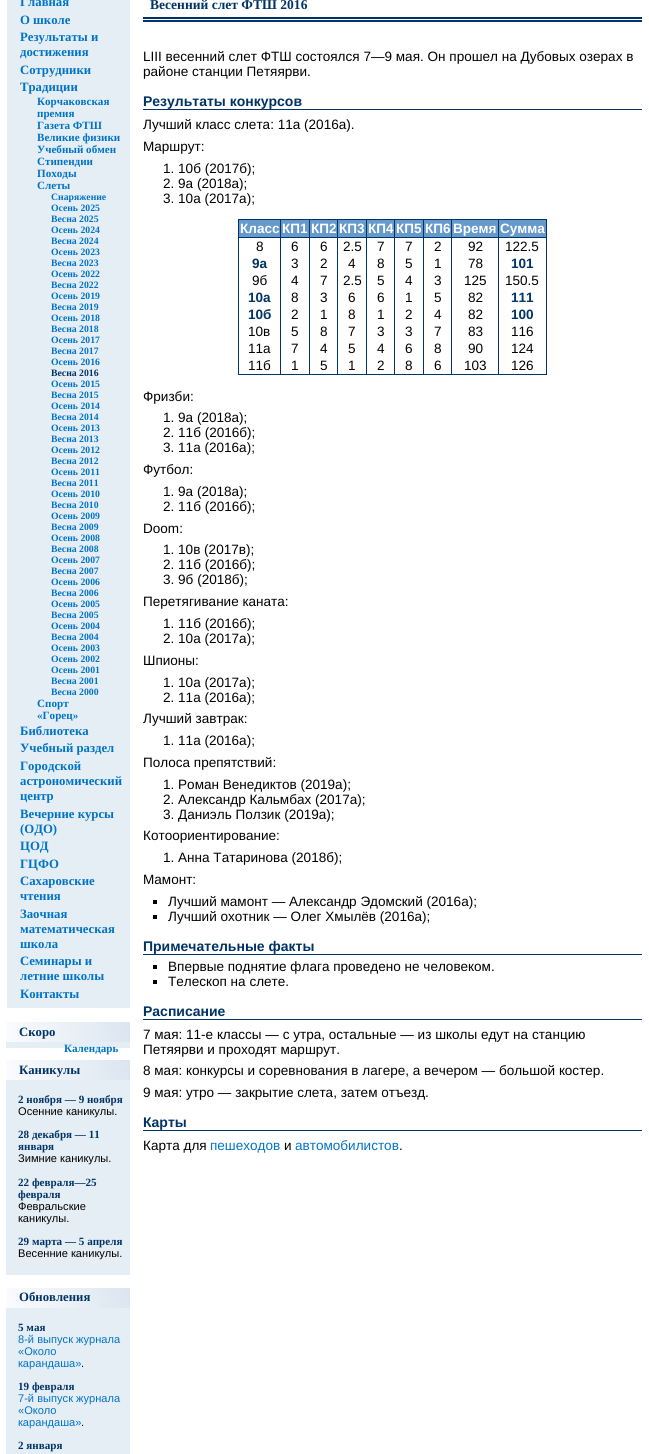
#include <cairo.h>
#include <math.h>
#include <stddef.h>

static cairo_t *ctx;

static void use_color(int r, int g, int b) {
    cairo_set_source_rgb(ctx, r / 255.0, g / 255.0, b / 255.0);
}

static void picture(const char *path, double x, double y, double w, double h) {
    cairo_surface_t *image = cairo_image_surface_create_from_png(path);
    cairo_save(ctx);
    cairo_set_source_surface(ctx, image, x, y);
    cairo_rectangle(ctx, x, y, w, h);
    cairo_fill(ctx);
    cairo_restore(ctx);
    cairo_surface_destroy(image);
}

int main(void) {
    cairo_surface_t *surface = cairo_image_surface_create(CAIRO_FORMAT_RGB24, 649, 1454);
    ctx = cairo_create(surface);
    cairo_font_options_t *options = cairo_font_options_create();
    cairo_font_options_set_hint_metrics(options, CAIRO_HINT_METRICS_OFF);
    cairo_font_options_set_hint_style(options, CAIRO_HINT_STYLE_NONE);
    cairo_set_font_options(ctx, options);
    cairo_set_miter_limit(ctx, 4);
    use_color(255, 255, 255);
    cairo_paint(ctx);
    use_color(230, 238, 245);
    cairo_rectangle(ctx, 7, 0, 123, 1008);
    cairo_fill(ctx);
    cairo_select_font_face(ctx, "Liberation Serif", CAIRO_FONT_SLANT_NORMAL, CAIRO_FONT_WEIGHT_BOLD);
    cairo_set_font_size(ctx, 12.75);
    use_color(0, 115, 199);
    cairo_move_to(ctx, 20, 6);
    cairo_show_text(ctx, "Главная");
    cairo_move_to(ctx, 20, 24);
    cairo_show_text(ctx, "О школе");
    cairo_move_to(ctx, 20, 41);
    cairo_show_text(ctx, "Результаты и");
    cairo_move_to(ctx, 20, 56);
    cairo_show_text(ctx, "достижения");
    cairo_move_to(ctx, 20, 74);
    cairo_show_text(ctx, "Сотрудники");
    cairo_move_to(ctx, 20, 91);
    cairo_show_text(ctx, "Традиции");
    cairo_set_font_size(ctx, 11.1);
    cairo_move_to(ctx, 37, 105);
    cairo_show_text(ctx, "Корчаковская");
    cairo_move_to(ctx, 37, 117);
    cairo_show_text(ctx, "премия");
    cairo_move_to(ctx, 37, 129);
    cairo_show_text(ctx, "Газета ФТШ");
    cairo_move_to(ctx, 37, 141);
    cairo_show_text(ctx, "Великие физики");
    cairo_move_to(ctx, 37, 153);
    cairo_show_text(ctx, "Учебный обмен");
    cairo_move_to(ctx, 37, 165);
    cairo_show_text(ctx, "Стипендии");
    cairo_move_to(ctx, 37, 177);
    cairo_show_text(ctx, "Походы");
    cairo_move_to(ctx, 37, 189);
    cairo_show_text(ctx, "Слеты");
    cairo_set_font_size(ctx, 9.75);
    cairo_move_to(ctx, 51, 200);
    cairo_show_text(ctx, "Снаряжение");
    cairo_move_to(ctx, 51, 211);
    cairo_show_text(ctx, "Осень 2025");
    cairo_move_to(ctx, 51, 222);
    cairo_show_text(ctx, "Весна 2025");
    cairo_move_to(ctx, 51, 233);
    cairo_show_text(ctx, "Осень 2024");
    cairo_move_to(ctx, 51, 244);
    cairo_show_text(ctx, "Весна 2024");
    cairo_move_to(ctx, 51, 255);
    cairo_show_text(ctx, "Осень 2023");
    cairo_move_to(ctx, 51, 266);
    cairo_show_text(ctx, "Весна 2023");
    cairo_move_to(ctx, 51, 277);
    cairo_show_text(ctx, "Осень 2022");
    cairo_move_to(ctx, 51, 288);
    cairo_show_text(ctx, "Весна 2022");
    cairo_move_to(ctx, 51, 299);
    cairo_show_text(ctx, "Осень 2019");
    cairo_move_to(ctx, 51, 310);
    cairo_show_text(ctx, "Весна 2019");
    cairo_move_to(ctx, 51, 321);
    cairo_show_text(ctx, "Осень 2018");
    cairo_move_to(ctx, 51, 332);
    cairo_show_text(ctx, "Весна 2018");
    cairo_move_to(ctx, 51, 343);
    cairo_show_text(ctx, "Осень 2017");
    cairo_move_to(ctx, 51, 354);
    cairo_show_text(ctx, "Весна 2017");
    cairo_move_to(ctx, 51, 365);
    cairo_show_text(ctx, "Осень 2016");
    use_color(0, 51, 102);
    cairo_move_to(ctx, 51, 376);
    cairo_show_text(ctx, "Весна 2016");
    use_color(0, 115, 199);
    cairo_move_to(ctx, 51, 387);
    cairo_show_text(ctx, "Осень 2015");
    cairo_move_to(ctx, 51, 398);
    cairo_show_text(ctx, "Весна 2015");
    cairo_move_to(ctx, 51, 409);
    cairo_show_text(ctx, "Осень 2014");
    cairo_move_to(ctx, 51, 420);
    cairo_show_text(ctx, "Весна 2014");
    cairo_move_to(ctx, 51, 431);
    cairo_show_text(ctx, "Осень 2013");
    cairo_move_to(ctx, 51, 442);
    cairo_show_text(ctx, "Весна 2013");
    cairo_move_to(ctx, 51, 453);
    cairo_show_text(ctx, "Осень 2012");
    cairo_move_to(ctx, 51, 464);
    cairo_show_text(ctx, "Весна 2012");
    cairo_move_to(ctx, 51, 475);
    cairo_show_text(ctx, "Осень 2011");
    cairo_move_to(ctx, 51, 486);
    cairo_show_text(ctx, "Весна 2011");
    cairo_move_to(ctx, 51, 497);
    cairo_show_text(ctx, "Осень 2010");
    cairo_move_to(ctx, 51, 508);
    cairo_show_text(ctx, "Весна 2010");
    cairo_move_to(ctx, 51, 519);
    cairo_show_text(ctx, "Осень 2009");
    cairo_move_to(ctx, 51, 530);
    cairo_show_text(ctx, "Весна 2009");
    cairo_move_to(ctx, 51, 541);
    cairo_show_text(ctx, "Осень 2008");
    cairo_move_to(ctx, 51, 552);
    cairo_show_text(ctx, "Весна 2008");
    cairo_move_to(ctx, 51, 563);
    cairo_show_text(ctx, "Осень 2007");
    cairo_move_to(ctx, 51, 574);
    cairo_show_text(ctx, "Весна 2007");
    cairo_move_to(ctx, 51, 585);
    cairo_show_text(ctx, "Осень 2006");
    cairo_move_to(ctx, 51, 596);
    cairo_show_text(ctx, "Весна 2006");
    cairo_move_to(ctx, 51, 607);
    cairo_show_text(ctx, "Осень 2005");
    cairo_move_to(ctx, 51, 618);
    cairo_show_text(ctx, "Весна 2005");
    cairo_move_to(ctx, 51, 629);
    cairo_show_text(ctx, "Осень 2004");
    cairo_move_to(ctx, 51, 640);
    cairo_show_text(ctx, "Весна 2004");
    cairo_move_to(ctx, 51, 651);
    cairo_show_text(ctx, "Осень 2003");
    cairo_move_to(ctx, 51, 662);
    cairo_show_text(ctx, "Осень 2002");
    cairo_move_to(ctx, 51, 673);
    cairo_show_text(ctx, "Осень 2001");
    cairo_move_to(ctx, 51, 684);
    cairo_show_text(ctx, "Весна 2001");
    cairo_move_to(ctx, 51, 695);
    cairo_show_text(ctx, "Весна 2000");
    cairo_set_font_size(ctx, 11.1);
    cairo_move_to(ctx, 37, 707);
    cairo_show_text(ctx, "Спорт");
    cairo_move_to(ctx, 37, 719);
    cairo_show_text(ctx, "«Горец»");
    cairo_set_font_size(ctx, 12.75);
    cairo_move_to(ctx, 20, 735);
    cairo_show_text(ctx, "Библиотека");
    cairo_move_to(ctx, 20, 752);
    cairo_show_text(ctx, "Учебный раздел");
    cairo_move_to(ctx, 20, 770);
    cairo_show_text(ctx, "Городской");
    cairo_move_to(ctx, 20, 785);
    cairo_show_text(ctx, "астрономический");
    cairo_move_to(ctx, 20, 800);
    cairo_show_text(ctx, "центр");
    cairo_move_to(ctx, 20, 818);
    cairo_show_text(ctx, "Вечерние курсы");
    cairo_move_to(ctx, 20, 833);
    cairo_show_text(ctx, "(ОДО)");
    cairo_move_to(ctx, 20, 850);
    cairo_show_text(ctx, "ЦОД");
    cairo_move_to(ctx, 20, 868);
    cairo_show_text(ctx, "ГЦФО");
    cairo_move_to(ctx, 20, 885);
    cairo_show_text(ctx, "Сахаровские");
    cairo_move_to(ctx, 20, 900);
    cairo_show_text(ctx, "чтения");
    cairo_move_to(ctx, 20, 918);
    cairo_show_text(ctx, "Заочная");
    cairo_move_to(ctx, 20, 933);
    cairo_show_text(ctx, "математическая");
    cairo_move_to(ctx, 20, 948);
    cairo_show_text(ctx, "школа");
    cairo_move_to(ctx, 20, 965);
    cairo_show_text(ctx, "Семинары и");
    cairo_move_to(ctx, 20, 980);
    cairo_show_text(ctx, "летние школы");
    cairo_move_to(ctx, 20, 998);
    cairo_show_text(ctx, "Контакты");
    use_color(230, 238, 245);
    cairo_rectangle(ctx, 6, 1042, 124, 6);
    cairo_fill(ctx);
    picture("img1.png", 6, 1022, 124, 20);
    use_color(0, 51, 102);
    cairo_move_to(ctx, 19, 1036);
    cairo_show_text(ctx, "Скоро");
    cairo_set_font_size(ctx, 11.1);
    use_color(0, 115, 199);
    cairo_move_to(ctx, 64, 1052);
    cairo_show_text(ctx, "Календарь");
    use_color(230, 238, 245);
    cairo_rectangle(ctx, 6, 1080, 124, 195);
    cairo_fill(ctx);
    picture("img1.png", 6, 1060, 124, 20);
    cairo_set_font_size(ctx, 12.75);
    use_color(0, 51, 102);
    cairo_move_to(ctx, 19, 1074);
    cairo_show_text(ctx, "Каникулы");
    cairo_set_font_size(ctx, 11.1);
    cairo_move_to(ctx, 18, 1103);
    cairo_show_text(ctx, "2 ноября — 9 ноября");
    cairo_select_font_face(ctx, "Liberation Sans", CAIRO_FONT_SLANT_NORMAL, CAIRO_FONT_WEIGHT_NORMAL);
    use_color(0, 0, 0);
    cairo_move_to(ctx, 18, 1115);
    cairo_show_text(ctx, "Осенние каникулы.");
    cairo_select_font_face(ctx, "Liberation Serif", CAIRO_FONT_SLANT_NORMAL, CAIRO_FONT_WEIGHT_BOLD);
    use_color(0, 51, 102);
    cairo_move_to(ctx, 18, 1138);
    cairo_show_text(ctx, "28 декабря — 11");
    cairo_move_to(ctx, 18, 1150);
    cairo_show_text(ctx, "января");
    cairo_select_font_face(ctx, "Liberation Sans", CAIRO_FONT_SLANT_NORMAL, CAIRO_FONT_WEIGHT_NORMAL);
    use_color(0, 0, 0);
    cairo_move_to(ctx, 18, 1162);
    cairo_show_text(ctx, "Зимние каникулы.");
    cairo_select_font_face(ctx, "Liberation Serif", CAIRO_FONT_SLANT_NORMAL, CAIRO_FONT_WEIGHT_BOLD);
    use_color(0, 51, 102);
    cairo_move_to(ctx, 18, 1186);
    cairo_show_text(ctx, "22 февраля—25");
    cairo_move_to(ctx, 18, 1198);
    cairo_show_text(ctx, "февраля");
    cairo_select_font_face(ctx, "Liberation Sans", CAIRO_FONT_SLANT_NORMAL, CAIRO_FONT_WEIGHT_NORMAL);
    use_color(0, 0, 0);
    cairo_move_to(ctx, 18, 1210);
    cairo_show_text(ctx, "Февральские");
    cairo_move_to(ctx, 18, 1222);
    cairo_show_text(ctx, "каникулы.");
    cairo_select_font_face(ctx, "Liberation Serif", CAIRO_FONT_SLANT_NORMAL, CAIRO_FONT_WEIGHT_BOLD);
    use_color(0, 51, 102);
    cairo_move_to(ctx, 18, 1245);
    cairo_show_text(ctx, "29 марта — 5 апреля");
    cairo_select_font_face(ctx, "Liberation Sans", CAIRO_FONT_SLANT_NORMAL, CAIRO_FONT_WEIGHT_NORMAL);
    use_color(0, 0, 0);
    cairo_move_to(ctx, 18, 1257);
    cairo_show_text(ctx, "Весенние каникулы.");
    use_color(230, 238, 245);
    cairo_rectangle(ctx, 6, 1308, 124, 146);
    cairo_fill(ctx);
    picture("img1.png", 6, 1288, 124, 20);
    cairo_select_font_face(ctx, "Liberation Serif", CAIRO_FONT_SLANT_NORMAL, CAIRO_FONT_WEIGHT_BOLD);
    cairo_set_font_size(ctx, 12.75);
    use_color(0, 51, 102);
    cairo_move_to(ctx, 19, 1301);
    cairo_show_text(ctx, "Обновления");
    cairo_set_font_size(ctx, 11.1);
    cairo_move_to(ctx, 18, 1331);
    cairo_show_text(ctx, "5 мая");
    cairo_select_font_face(ctx, "Liberation Sans", CAIRO_FONT_SLANT_NORMAL, CAIRO_FONT_WEIGHT_NORMAL);
    use_color(0, 115, 199);
    cairo_move_to(ctx, 18, 1343);
    cairo_show_text(ctx, "8-й выпуск журнала");
    cairo_move_to(ctx, 18, 1355);
    cairo_show_text(ctx, "«Около");
    cairo_move_to(ctx, 18, 1367);
    cairo_show_text(ctx, "карандаша»");
    use_color(0, 0, 0);
    cairo_move_to(ctx, 81, 1367);
    cairo_show_text(ctx, ".");
    cairo_select_font_face(ctx, "Liberation Serif", CAIRO_FONT_SLANT_NORMAL, CAIRO_FONT_WEIGHT_BOLD);
    use_color(0, 51, 102);
    cairo_move_to(ctx, 18, 1390);
    cairo_show_text(ctx, "19 февраля");
    cairo_select_font_face(ctx, "Liberation Sans", CAIRO_FONT_SLANT_NORMAL, CAIRO_FONT_WEIGHT_NORMAL);
    use_color(0, 115, 199);
    cairo_move_to(ctx, 18, 1402);
    cairo_show_text(ctx, "7-й выпуск журнала");
    cairo_move_to(ctx, 18, 1414);
    cairo_show_text(ctx, "«Около");
    cairo_move_to(ctx, 18, 1426);
    cairo_show_text(ctx, "карандаша»");
    use_color(0, 0, 0);
    cairo_move_to(ctx, 81, 1426);
    cairo_show_text(ctx, ".");
    cairo_select_font_face(ctx, "Liberation Serif", CAIRO_FONT_SLANT_NORMAL, CAIRO_FONT_WEIGHT_BOLD);
    use_color(0, 51, 102);
    cairo_move_to(ctx, 18, 1449);
    cairo_show_text(ctx, "2 января");
    cairo_rectangle(ctx, 143, 17, 499, 2);
    cairo_fill(ctx);
    cairo_rectangle(ctx, 143, 20, 499, 2);
    cairo_fill(ctx);
    cairo_set_font_size(ctx, 13.55);
    cairo_move_to(ctx, 150, 9);
    cairo_show_text(ctx, "Весенний слет ФТШ 2016");
    cairo_select_font_face(ctx, "Liberation Sans", CAIRO_FONT_SLANT_NORMAL, CAIRO_FONT_WEIGHT_NORMAL);
    use_color(0, 0, 0);
    cairo_move_to(ctx, 143, 61);
    cairo_show_text(ctx, "LIII весенний слет ФТШ состоялся 7—9 мая. Он прошел на Дубовых озерах в");
    cairo_move_to(ctx, 143, 76);
    cairo_show_text(ctx, "районе станции Петяярви.");
    use_color(0, 51, 102);
    cairo_rectangle(ctx, 143, 109, 499, 1);
    cairo_fill(ctx);
    cairo_select_font_face(ctx, "Liberation Sans", CAIRO_FONT_SLANT_NORMAL, CAIRO_FONT_WEIGHT_BOLD);
    cairo_set_font_size(ctx, 14);
    cairo_move_to(ctx, 143, 106);
    cairo_show_text(ctx, "Результаты конкурсов");
    cairo_select_font_face(ctx, "Liberation Sans", CAIRO_FONT_SLANT_NORMAL, CAIRO_FONT_WEIGHT_NORMAL);
    cairo_set_font_size(ctx, 13.55);
    use_color(0, 0, 0);
    cairo_move_to(ctx, 143, 129);
    cairo_show_text(ctx, "Лучший класс слета: 11а (2016а).");
    cairo_move_to(ctx, 143, 151);
    cairo_show_text(ctx, "Маршрут:");
    cairo_move_to(ctx, 163, 173);
    cairo_show_text(ctx, "1. 10б (2017б);");
    cairo_move_to(ctx, 163, 188);
    cairo_show_text(ctx, "2. 9а (2018а);");
    cairo_move_to(ctx, 163, 203);
    cairo_show_text(ctx, "3. 10а (2017а);");
    use_color(0, 51, 102);
    cairo_rectangle(ctx, 238, 219, 309, 1);
    cairo_fill(ctx);
    cairo_rectangle(ctx, 546, 219, 1, 156);
    cairo_fill(ctx);
    cairo_rectangle(ctx, 238, 374, 309, 1);
    cairo_fill(ctx);
    cairo_rectangle(ctx, 238, 219, 1, 156);
    cairo_fill(ctx);
    use_color(102, 153, 204);
    cairo_rectangle(ctx, 239, 220, 41, 17);
    cairo_fill(ctx);
    use_color(0, 51, 102);
    cairo_rectangle(ctx, 498, 237, 1, 138);
    cairo_fill(ctx);
    cairo_rectangle(ctx, 498, 237, 49, 1);
    cairo_fill(ctx);
    cairo_rectangle(ctx, 498, 219, 1, 19);
    cairo_fill(ctx);
    cairo_rectangle(ctx, 451, 237, 1, 138);
    cairo_fill(ctx);
    cairo_rectangle(ctx, 451, 237, 48, 1);
    cairo_fill(ctx);
    cairo_rectangle(ctx, 451, 219, 1, 19);
    cairo_fill(ctx);
    cairo_rectangle(ctx, 423, 237, 1, 138);
    cairo_fill(ctx);
    cairo_rectangle(ctx, 423, 237, 29, 1);
    cairo_fill(ctx);
    cairo_rectangle(ctx, 423, 219, 1, 19);
    cairo_fill(ctx);
    cairo_rectangle(ctx, 394, 237, 1, 138);
    cairo_fill(ctx);
    cairo_rectangle(ctx, 394, 237, 30, 1);
    cairo_fill(ctx);
    cairo_rectangle(ctx, 394, 219, 1, 19);
    cairo_fill(ctx);
    cairo_rectangle(ctx, 366, 237, 1, 138);
    cairo_fill(ctx);
    cairo_rectangle(ctx, 366, 237, 29, 1);
    cairo_fill(ctx);
    cairo_rectangle(ctx, 366, 219, 1, 19);
    cairo_fill(ctx);
    cairo_rectangle(ctx, 337, 237, 1, 138);
    cairo_fill(ctx);
    cairo_rectangle(ctx, 337, 237, 30, 1);
    cairo_fill(ctx);
    cairo_rectangle(ctx, 337, 219, 1, 19);
    cairo_fill(ctx);
    cairo_rectangle(ctx, 309, 237, 1, 138);
    cairo_fill(ctx);
    cairo_rectangle(ctx, 309, 237, 29, 1);
    cairo_fill(ctx);
    cairo_rectangle(ctx, 309, 219, 1, 19);
    cairo_fill(ctx);
    cairo_rectangle(ctx, 280, 237, 1, 138);
    cairo_fill(ctx);
    cairo_rectangle(ctx, 280, 237, 30, 1);
    cairo_fill(ctx);
    cairo_rectangle(ctx, 280, 219, 1, 19);
    cairo_fill(ctx);
    cairo_rectangle(ctx, 238, 237, 43, 1);
    cairo_fill(ctx);
    cairo_select_font_face(ctx, "Liberation Sans", CAIRO_FONT_SLANT_NORMAL, CAIRO_FONT_WEIGHT_BOLD);
    use_color(255, 255, 255);
    cairo_move_to(ctx, 240, 233);
    cairo_show_text(ctx, "Класс");
    use_color(102, 153, 204);
    cairo_rectangle(ctx, 281, 220, 28, 17);
    cairo_fill(ctx);
    use_color(255, 255, 255);
    cairo_move_to(ctx, 282, 233);
    cairo_show_text(ctx, "КП1");
    use_color(102, 153, 204);
    cairo_rectangle(ctx, 310, 220, 27, 17);
    cairo_fill(ctx);
    use_color(255, 255, 255);
    cairo_move_to(ctx, 311, 233);
    cairo_show_text(ctx, "КП2");
    use_color(102, 153, 204);
    cairo_rectangle(ctx, 338, 220, 28, 17);
    cairo_fill(ctx);
    use_color(255, 255, 255);
    cairo_move_to(ctx, 339, 233);
    cairo_show_text(ctx, "КП3");
    use_color(102, 153, 204);
    cairo_rectangle(ctx, 367, 220, 27, 17);
    cairo_fill(ctx);
    use_color(255, 255, 255);
    cairo_move_to(ctx, 368, 233);
    cairo_show_text(ctx, "КП4");
    use_color(102, 153, 204);
    cairo_rectangle(ctx, 395, 220, 28, 17);
    cairo_fill(ctx);
    use_color(255, 255, 255);
    cairo_move_to(ctx, 396, 233);
    cairo_show_text(ctx, "КП5");
    use_color(102, 153, 204);
    cairo_rectangle(ctx, 424, 220, 27, 17);
    cairo_fill(ctx);
    use_color(255, 255, 255);
    cairo_move_to(ctx, 425, 233);
    cairo_show_text(ctx, "КП6");
    use_color(102, 153, 204);
    cairo_rectangle(ctx, 452, 220, 46, 17);
    cairo_fill(ctx);
    use_color(255, 255, 255);
    cairo_move_to(ctx, 453, 233);
    cairo_show_text(ctx, "Время");
    use_color(102, 153, 204);
    cairo_rectangle(ctx, 499, 220, 47, 17);
    cairo_fill(ctx);
    use_color(255, 255, 255);
    cairo_move_to(ctx, 500, 233);
    cairo_show_text(ctx, "Сумма");
    cairo_select_font_face(ctx, "Liberation Sans", CAIRO_FONT_SLANT_NORMAL, CAIRO_FONT_WEIGHT_NORMAL);
    use_color(0, 0, 0);
    cairo_move_to(ctx, 256, 251);
    cairo_show_text(ctx, "8");
    cairo_move_to(ctx, 291, 251);
    cairo_show_text(ctx, "6");
    cairo_move_to(ctx, 320, 251);
    cairo_show_text(ctx, "6");
    cairo_move_to(ctx, 343, 251);
    cairo_show_text(ctx, "2.5");
    cairo_move_to(ctx, 377, 251);
    cairo_show_text(ctx, "7");
    cairo_move_to(ctx, 405, 251);
    cairo_show_text(ctx, "7");
    cairo_move_to(ctx, 434, 251);
    cairo_show_text(ctx, "2");
    cairo_move_to(ctx, 468, 251);
    cairo_show_text(ctx, "92");
    cairo_move_to(ctx, 505, 251);
    cairo_show_text(ctx, "122.5");
    cairo_select_font_face(ctx, "Liberation Sans", CAIRO_FONT_SLANT_NORMAL, CAIRO_FONT_WEIGHT_BOLD);
    use_color(0, 51, 102);
    cairo_move_to(ctx, 252, 268);
    cairo_show_text(ctx, "9а");
    cairo_select_font_face(ctx, "Liberation Sans", CAIRO_FONT_SLANT_NORMAL, CAIRO_FONT_WEIGHT_NORMAL);
    use_color(0, 0, 0);
    cairo_move_to(ctx, 291, 268);
    cairo_show_text(ctx, "3");
    cairo_move_to(ctx, 320, 268);
    cairo_show_text(ctx, "2");
    cairo_move_to(ctx, 348, 268);
    cairo_show_text(ctx, "4");
    cairo_move_to(ctx, 377, 268);
    cairo_show_text(ctx, "8");
    cairo_move_to(ctx, 405, 268);
    cairo_show_text(ctx, "5");
    cairo_move_to(ctx, 434, 268);
    cairo_show_text(ctx, "1");
    cairo_move_to(ctx, 468, 268);
    cairo_show_text(ctx, "78");
    cairo_select_font_face(ctx, "Liberation Sans", CAIRO_FONT_SLANT_NORMAL, CAIRO_FONT_WEIGHT_BOLD);
    use_color(0, 51, 102);
    cairo_move_to(ctx, 511, 268);
    cairo_show_text(ctx, "101");
    cairo_select_font_face(ctx, "Liberation Sans", CAIRO_FONT_SLANT_NORMAL, CAIRO_FONT_WEIGHT_NORMAL);
    use_color(0, 0, 0);
    cairo_move_to(ctx, 252, 285);
    cairo_show_text(ctx, "9б");
    cairo_move_to(ctx, 291, 285);
    cairo_show_text(ctx, "4");
    cairo_move_to(ctx, 320, 285);
    cairo_show_text(ctx, "7");
    cairo_move_to(ctx, 343, 285);
    cairo_show_text(ctx, "2.5");
    cairo_move_to(ctx, 377, 285);
    cairo_show_text(ctx, "5");
    cairo_move_to(ctx, 405, 285);
    cairo_show_text(ctx, "4");
    cairo_move_to(ctx, 434, 285);
    cairo_show_text(ctx, "3");
    cairo_move_to(ctx, 464, 285);
    cairo_show_text(ctx, "125");
    cairo_move_to(ctx, 505, 285);
    cairo_show_text(ctx, "150.5");
    cairo_select_font_face(ctx, "Liberation Sans", CAIRO_FONT_SLANT_NORMAL, CAIRO_FONT_WEIGHT_BOLD);
    use_color(0, 51, 102);
    cairo_move_to(ctx, 248, 302);
    cairo_show_text(ctx, "10а");
    cairo_select_font_face(ctx, "Liberation Sans", CAIRO_FONT_SLANT_NORMAL, CAIRO_FONT_WEIGHT_NORMAL);
    use_color(0, 0, 0);
    cairo_move_to(ctx, 291, 302);
    cairo_show_text(ctx, "8");
    cairo_move_to(ctx, 320, 302);
    cairo_show_text(ctx, "3");
    cairo_move_to(ctx, 348, 302);
    cairo_show_text(ctx, "6");
    cairo_move_to(ctx, 377, 302);
    cairo_show_text(ctx, "6");
    cairo_move_to(ctx, 405, 302);
    cairo_show_text(ctx, "1");
    cairo_move_to(ctx, 434, 302);
    cairo_show_text(ctx, "5");
    cairo_move_to(ctx, 468, 302);
    cairo_show_text(ctx, "82");
    cairo_select_font_face(ctx, "Liberation Sans", CAIRO_FONT_SLANT_NORMAL, CAIRO_FONT_WEIGHT_BOLD);
    use_color(0, 51, 102);
    cairo_move_to(ctx, 511, 302);
    cairo_show_text(ctx, "111");
    cairo_move_to(ctx, 248, 319);
    cairo_show_text(ctx, "10б");
    cairo_select_font_face(ctx, "Liberation Sans", CAIRO_FONT_SLANT_NORMAL, CAIRO_FONT_WEIGHT_NORMAL);
    use_color(0, 0, 0);
    cairo_move_to(ctx, 291, 319);
    cairo_show_text(ctx, "2");
    cairo_move_to(ctx, 320, 319);
    cairo_show_text(ctx, "1");
    cairo_move_to(ctx, 348, 319);
    cairo_show_text(ctx, "8");
    cairo_move_to(ctx, 377, 319);
    cairo_show_text(ctx, "1");
    cairo_move_to(ctx, 405, 319);
    cairo_show_text(ctx, "2");
    cairo_move_to(ctx, 434, 319);
    cairo_show_text(ctx, "4");
    cairo_move_to(ctx, 468, 319);
    cairo_show_text(ctx, "82");
    cairo_select_font_face(ctx, "Liberation Sans", CAIRO_FONT_SLANT_NORMAL, CAIRO_FONT_WEIGHT_BOLD);
    use_color(0, 51, 102);
    cairo_move_to(ctx, 511, 319);
    cairo_show_text(ctx, "100");
    cairo_select_font_face(ctx, "Liberation Sans", CAIRO_FONT_SLANT_NORMAL, CAIRO_FONT_WEIGHT_NORMAL);
    use_color(0, 0, 0);
    cairo_move_to(ctx, 248, 336);
    cairo_show_text(ctx, "10в");
    cairo_move_to(ctx, 291, 336);
    cairo_show_text(ctx, "5");
    cairo_move_to(ctx, 320, 336);
    cairo_show_text(ctx, "8");
    cairo_move_to(ctx, 348, 336);
    cairo_show_text(ctx, "7");
    cairo_move_to(ctx, 377, 336);
    cairo_show_text(ctx, "3");
    cairo_move_to(ctx, 405, 336);
    cairo_show_text(ctx, "3");
    cairo_move_to(ctx, 434, 336);
    cairo_show_text(ctx, "7");
    cairo_move_to(ctx, 468, 336);
    cairo_show_text(ctx, "83");
    cairo_move_to(ctx, 511, 336);
    cairo_show_text(ctx, "116");
    cairo_move_to(ctx, 248, 353);
    cairo_show_text(ctx, "11а");
    cairo_move_to(ctx, 291, 353);
    cairo_show_text(ctx, "7");
    cairo_move_to(ctx, 320, 353);
    cairo_show_text(ctx, "4");
    cairo_move_to(ctx, 348, 353);
    cairo_show_text(ctx, "5");
    cairo_move_to(ctx, 377, 353);
    cairo_show_text(ctx, "4");
    cairo_move_to(ctx, 405, 353);
    cairo_show_text(ctx, "6");
    cairo_move_to(ctx, 434, 353);
    cairo_show_text(ctx, "8");
    cairo_move_to(ctx, 468, 353);
    cairo_show_text(ctx, "90");
    cairo_move_to(ctx, 511, 353);
    cairo_show_text(ctx, "124");
    cairo_move_to(ctx, 248, 370);
    cairo_show_text(ctx, "11б");
    cairo_move_to(ctx, 291, 370);
    cairo_show_text(ctx, "1");
    cairo_move_to(ctx, 320, 370);
    cairo_show_text(ctx, "5");
    cairo_move_to(ctx, 348, 370);
    cairo_show_text(ctx, "1");
    cairo_move_to(ctx, 377, 370);
    cairo_show_text(ctx, "2");
    cairo_move_to(ctx, 405, 370);
    cairo_show_text(ctx, "8");
    cairo_move_to(ctx, 434, 370);
    cairo_show_text(ctx, "6");
    cairo_move_to(ctx, 464, 370);
    cairo_show_text(ctx, "103");
    cairo_move_to(ctx, 511, 370);
    cairo_show_text(ctx, "126");
    cairo_move_to(ctx, 143, 401);
    cairo_show_text(ctx, "Фризби:");
    cairo_move_to(ctx, 163, 422);
    cairo_show_text(ctx, "1. 9а (2018а);");
    cairo_move_to(ctx, 163, 437);
    cairo_show_text(ctx, "2. 11б (2016б);");
    cairo_move_to(ctx, 163, 452);
    cairo_show_text(ctx, "3. 11а (2016а);");
    cairo_move_to(ctx, 143, 474);
    cairo_show_text(ctx, "Футбол:");
    cairo_move_to(ctx, 163, 496);
    cairo_show_text(ctx, "1. 9а (2018а);");
    cairo_move_to(ctx, 163, 511);
    cairo_show_text(ctx, "2. 11б (2016б);");
    cairo_move_to(ctx, 143, 533);
    cairo_show_text(ctx, "Doom:");
    cairo_move_to(ctx, 163, 554);
    cairo_show_text(ctx, "1. 10в (2017в);");
    cairo_move_to(ctx, 163, 569);
    cairo_show_text(ctx, "2. 11б (2016б);");
    cairo_move_to(ctx, 163, 584);
    cairo_show_text(ctx, "3. 9б (2018б);");
    cairo_move_to(ctx, 143, 606);
    cairo_show_text(ctx, "Перетягивание каната:");
    cairo_move_to(ctx, 163, 628);
    cairo_show_text(ctx, "1. 11б (2016б);");
    cairo_move_to(ctx, 163, 643);
    cairo_show_text(ctx, "2. 10а (2017а);");
    cairo_move_to(ctx, 143, 665);
    cairo_show_text(ctx, "Шпионы:");
    cairo_move_to(ctx, 163, 687);
    cairo_show_text(ctx, "1. 10а (2017а);");
    cairo_move_to(ctx, 163, 702);
    cairo_show_text(ctx, "2. 11а (2016а);");
    cairo_move_to(ctx, 143, 723);
    cairo_show_text(ctx, "Лучший завтрак:");
    cairo_move_to(ctx, 163, 745);
    cairo_show_text(ctx, "1. 11а (2016а);");
    cairo_move_to(ctx, 143, 767);
    cairo_show_text(ctx, "Полоса препятствий:");
    cairo_move_to(ctx, 163, 789);
    cairo_show_text(ctx, "1. Роман Венедиктов (2019а);");
    cairo_move_to(ctx, 163, 804);
    cairo_show_text(ctx, "2. Александр Кальмбах (2017а);");
    cairo_move_to(ctx, 163, 819);
    cairo_show_text(ctx, "3. Даниэль Ползик (2019а);");
    cairo_move_to(ctx, 143, 840);
    cairo_show_text(ctx, "Котоориентирование:");
    cairo_move_to(ctx, 163, 862);
    cairo_show_text(ctx, "1. Анна Татаринова (2018б);");
    cairo_move_to(ctx, 143, 884);
    cairo_show_text(ctx, "Мамонт:");
    cairo_rectangle(ctx, 153, 900, 4, 4);
    cairo_fill(ctx);
    cairo_move_to(ctx, 168, 906);
    cairo_show_text(ctx, "Лучший мамонт — Александр Эдомский (2016а);");
    cairo_rectangle(ctx, 153, 915, 4, 4);
    cairo_fill(ctx);
    cairo_move_to(ctx, 168, 921);
    cairo_show_text(ctx, "Лучший охотник — Олег Хмылёв (2016а);");
    use_color(0, 51, 102);
    cairo_rectangle(ctx, 143, 954, 499, 1);
    cairo_fill(ctx);
    cairo_select_font_face(ctx, "Liberation Sans", CAIRO_FONT_SLANT_NORMAL, CAIRO_FONT_WEIGHT_BOLD);
    cairo_set_font_size(ctx, 14);
    cairo_move_to(ctx, 143, 951);
    cairo_show_text(ctx, "Примечательные факты");
    use_color(0, 0, 0);
    cairo_rectangle(ctx, 153, 965, 4, 4);
    cairo_fill(ctx);
    cairo_select_font_face(ctx, "Liberation Sans", CAIRO_FONT_SLANT_NORMAL, CAIRO_FONT_WEIGHT_NORMAL);
    cairo_set_font_size(ctx, 13.55);
    cairo_move_to(ctx, 168, 971);
    cairo_show_text(ctx, "Впервые поднятие флага проведено не человеком.");
    cairo_rectangle(ctx, 153, 980, 4, 4);
    cairo_fill(ctx);
    cairo_move_to(ctx, 168, 986);
    cairo_show_text(ctx, "Телескоп на слете.");
    use_color(0, 51, 102);
    cairo_rectangle(ctx, 143, 1019, 499, 1);
    cairo_fill(ctx);
    cairo_select_font_face(ctx, "Liberation Sans", CAIRO_FONT_SLANT_NORMAL, CAIRO_FONT_WEIGHT_BOLD);
    cairo_set_font_size(ctx, 14);
    cairo_move_to(ctx, 143, 1016);
    cairo_show_text(ctx, "Расписание");
    cairo_select_font_face(ctx, "Liberation Sans", CAIRO_FONT_SLANT_NORMAL, CAIRO_FONT_WEIGHT_NORMAL);
    cairo_set_font_size(ctx, 13.55);
    use_color(0, 0, 0);
    cairo_move_to(ctx, 143, 1039);
    cairo_show_text(ctx, "7 мая: 11-е классы — с утра, остальные — из школы едут на станцию");
    cairo_move_to(ctx, 143, 1054);
    cairo_show_text(ctx, "Петяярви и проходят маршрут.");
    cairo_move_to(ctx, 143, 1075);
    cairo_show_text(ctx, "8 мая: конкурсы и соревнования в лагере, а вечером — большой костер.");
    cairo_move_to(ctx, 143, 1097);
    cairo_show_text(ctx, "9 мая: утро — закрытие слета, затем отъезд.");
    use_color(0, 51, 102);
    cairo_rectangle(ctx, 143, 1130, 499, 1);
    cairo_fill(ctx);
    cairo_select_font_face(ctx, "Liberation Sans", CAIRO_FONT_SLANT_NORMAL, CAIRO_FONT_WEIGHT_BOLD);
    cairo_set_font_size(ctx, 14);
    cairo_move_to(ctx, 143, 1127);
    cairo_show_text(ctx, "Карты");
    cairo_select_font_face(ctx, "Liberation Sans", CAIRO_FONT_SLANT_NORMAL, CAIRO_FONT_WEIGHT_NORMAL);
    cairo_set_font_size(ctx, 13.55);
    use_color(0, 0, 0);
    cairo_move_to(ctx, 143, 1150);
    cairo_show_text(ctx, "Карта для");
    use_color(0, 115, 199);
    cairo_move_to(ctx, 210, 1150);
    cairo_show_text(ctx, "пешеходов");
    use_color(0, 0, 0);
    cairo_move_to(ctx, 284, 1150);
    cairo_show_text(ctx, "и");
    use_color(0, 115, 199);
    cairo_move_to(ctx, 295, 1150);
    cairo_show_text(ctx, "автомобилистов");
    use_color(0, 0, 0);
    cairo_move_to(ctx, 399, 1150);
    cairo_show_text(ctx, ".");
    cairo_surface_write_to_png(surface, "result.png");
    cairo_font_options_destroy(options);
    cairo_destroy(ctx);
    cairo_surface_destroy(surface);
    return 0;
}
